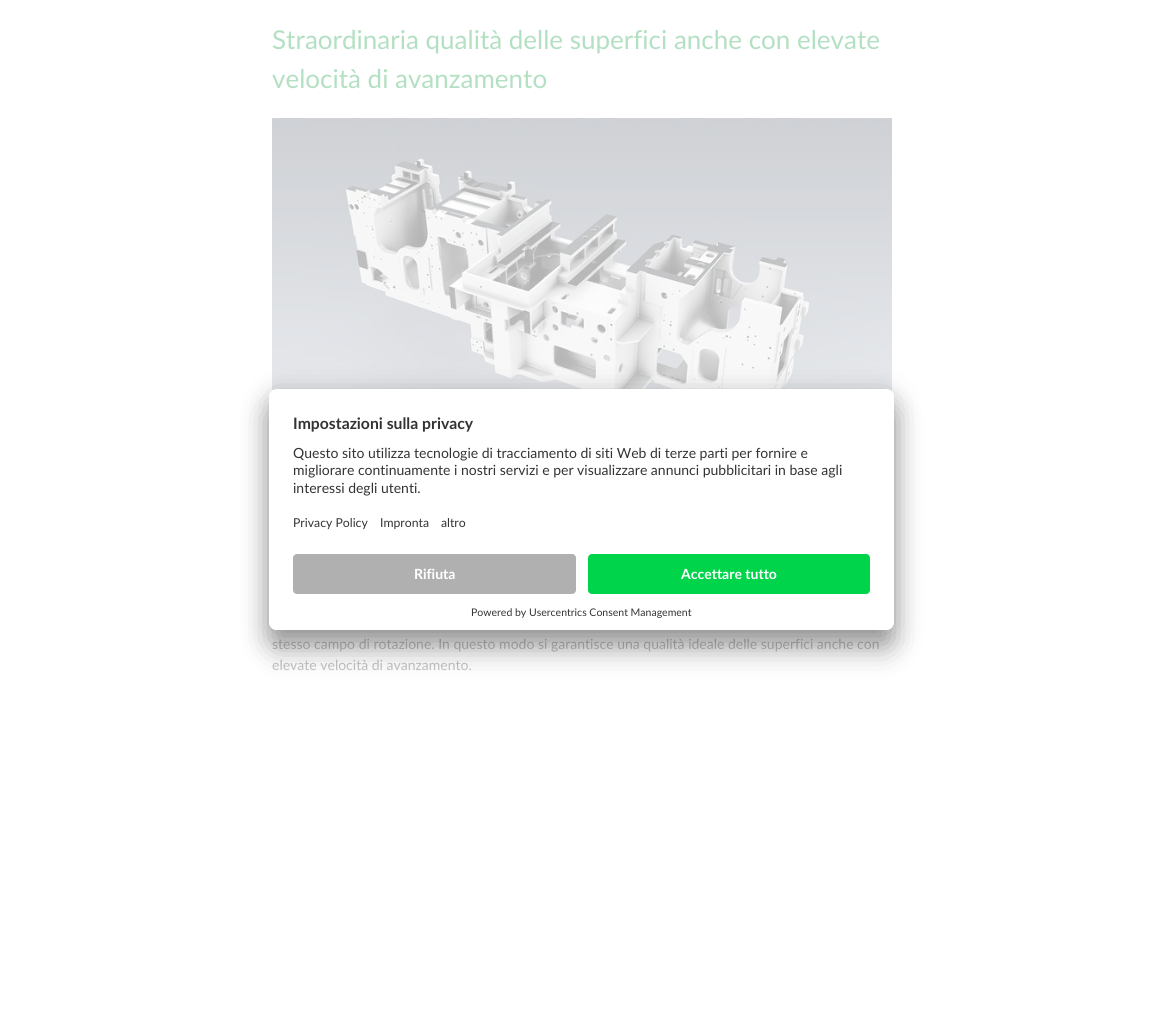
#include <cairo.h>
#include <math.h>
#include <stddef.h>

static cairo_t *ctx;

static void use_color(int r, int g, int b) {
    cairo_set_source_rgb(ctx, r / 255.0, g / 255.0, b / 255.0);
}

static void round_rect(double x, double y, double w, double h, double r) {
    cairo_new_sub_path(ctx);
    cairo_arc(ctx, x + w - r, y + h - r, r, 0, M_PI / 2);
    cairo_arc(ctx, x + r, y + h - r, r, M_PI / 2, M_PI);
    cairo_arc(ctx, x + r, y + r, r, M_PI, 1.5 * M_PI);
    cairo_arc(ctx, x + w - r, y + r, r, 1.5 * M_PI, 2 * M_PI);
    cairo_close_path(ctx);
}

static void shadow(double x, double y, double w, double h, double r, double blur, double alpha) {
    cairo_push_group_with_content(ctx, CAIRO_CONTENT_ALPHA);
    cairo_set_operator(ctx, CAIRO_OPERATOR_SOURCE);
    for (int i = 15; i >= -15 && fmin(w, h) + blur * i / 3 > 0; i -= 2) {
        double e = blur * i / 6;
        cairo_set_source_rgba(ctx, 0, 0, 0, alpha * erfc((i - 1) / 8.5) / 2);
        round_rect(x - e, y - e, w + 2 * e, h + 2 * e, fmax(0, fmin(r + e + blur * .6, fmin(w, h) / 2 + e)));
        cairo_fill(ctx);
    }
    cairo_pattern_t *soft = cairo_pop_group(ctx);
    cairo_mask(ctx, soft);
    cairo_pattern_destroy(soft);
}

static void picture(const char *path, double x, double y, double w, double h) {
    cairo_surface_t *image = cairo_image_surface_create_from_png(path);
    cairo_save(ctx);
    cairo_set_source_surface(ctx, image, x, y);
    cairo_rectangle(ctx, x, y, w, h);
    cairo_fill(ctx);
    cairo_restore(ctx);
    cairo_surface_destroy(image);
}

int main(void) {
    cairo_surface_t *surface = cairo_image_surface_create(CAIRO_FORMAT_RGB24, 1163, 1019);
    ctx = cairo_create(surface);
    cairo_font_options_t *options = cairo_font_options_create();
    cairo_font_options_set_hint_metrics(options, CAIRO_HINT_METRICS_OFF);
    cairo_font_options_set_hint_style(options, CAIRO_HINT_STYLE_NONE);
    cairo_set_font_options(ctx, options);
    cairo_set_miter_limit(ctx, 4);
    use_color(255, 255, 255);
    cairo_paint(ctx);
    cairo_select_font_face(ctx, "Lato", CAIRO_FONT_SLANT_NORMAL, CAIRO_FONT_WEIGHT_NORMAL);
    cairo_set_font_size(ctx, 26);
    use_color(179, 224, 194);
    cairo_move_to(ctx, 272, 49);
    cairo_show_text(ctx, "Straordinaria qualità delle superfici anche con elevate");
    cairo_move_to(ctx, 272, 88);
    cairo_show_text(ctx, "velocità di avanzamento");
    picture("img1.png", 272, 118, 620, 274);
    cairo_set_font_size(ctx, 14);
    use_color(194, 194, 194);
    cairo_move_to(ctx, 272, 649);
    cairo_show_text(ctx, "stesso campo di rotazione. In questo modo si garantisce una qualità ideale delle superfici anche con");
    cairo_move_to(ctx, 272, 670);
    cairo_show_text(ctx, "elevate velocità di avanzamento.");
    use_color(0, 0, 0);
    shadow(269, 409, 625, 241, 8, 14, 0.3);
    shadow(269, 394, 625, 241, 8, 13, 0.22);
    use_color(255, 255, 255);
    round_rect(269, 389, 625, 241, 8);
    cairo_fill(ctx);
    cairo_save(ctx);
    round_rect(269, 389, 625, 241, 8);
    cairo_clip(ctx);
    cairo_new_path(ctx);
    cairo_move_to(ctx, 277, 389);
    cairo_line_to(ctx, 886, 389);
    cairo_curve_to(ctx, 890.5, 389, 894, 392.5, 894, 397);
    cairo_line_to(ctx, 894, 546);
    cairo_line_to(ctx, 269, 546);
    cairo_line_to(ctx, 269, 397);
    cairo_curve_to(ctx, 269, 392.5, 272.5, 389, 277, 389);
    cairo_close_path(ctx);
    cairo_clip(ctx);
    cairo_rectangle(ctx, 269, 390, 625, 156);
    cairo_fill(ctx);
    cairo_restore(ctx);
    cairo_select_font_face(ctx, "Lato", CAIRO_FONT_SLANT_NORMAL, CAIRO_FONT_WEIGHT_BOLD);
    cairo_set_font_size(ctx, 15.75);
    use_color(51, 51, 51);
    cairo_move_to(ctx, 293, 429);
    cairo_show_text(ctx, "Impostazioni sulla privacy");
    cairo_select_font_face(ctx, "Lato", CAIRO_FONT_SLANT_NORMAL, CAIRO_FONT_WEIGHT_NORMAL);
    cairo_set_font_size(ctx, 14);
    cairo_move_to(ctx, 293, 458);
    cairo_show_text(ctx, "Questo sito utilizza tecnologie di tracciamento di siti Web di terze parti per fornire e");
    cairo_move_to(ctx, 293, 475);
    cairo_show_text(ctx, "migliorare continuamente i nostri servizi e per visualizzare annunci pubblicitari in base agli");
    cairo_move_to(ctx, 293, 493);
    cairo_show_text(ctx, "interessi degli utenti.");
    cairo_set_font_size(ctx, 12.25);
    cairo_move_to(ctx, 293, 527);
    cairo_show_text(ctx, "Privacy Policy");
    cairo_move_to(ctx, 380, 527);
    cairo_show_text(ctx, "Impronta");
    cairo_move_to(ctx, 441, 527);
    cairo_show_text(ctx, "altro");
    use_color(255, 255, 255);
    cairo_new_path(ctx);
    cairo_move_to(ctx, 269, 546);
    cairo_line_to(ctx, 894, 546);
    cairo_line_to(ctx, 894, 622);
    cairo_curve_to(ctx, 894, 626.5, 890.5, 630, 886, 630);
    cairo_line_to(ctx, 277, 630);
    cairo_curve_to(ctx, 272.5, 630, 269, 626.5, 269, 622);
    cairo_close_path(ctx);
    cairo_fill(ctx);
    use_color(176, 176, 176);
    round_rect(293, 554, 283, 40, 4);
    cairo_fill(ctx);
    cairo_select_font_face(ctx, "Lato", CAIRO_FONT_SLANT_NORMAL, CAIRO_FONT_WEIGHT_BOLD);
    cairo_set_font_size(ctx, 14);
    use_color(255, 255, 255);
    cairo_move_to(ctx, 414, 579);
    cairo_show_text(ctx, "Rifiuta");
    use_color(0, 212, 74);
    round_rect(588, 554, 282, 40, 4);
    cairo_fill(ctx);
    use_color(255, 255, 255);
    cairo_move_to(ctx, 681, 579);
    cairo_show_text(ctx, "Accettare tutto");
    cairo_select_font_face(ctx, "Lato", CAIRO_FONT_SLANT_NORMAL, CAIRO_FONT_WEIGHT_NORMAL);
    cairo_set_font_size(ctx, 10.5);
    use_color(51, 51, 51);
    cairo_move_to(ctx, 471, 616);
    cairo_show_text(ctx, "Powered by Usercentrics Consent Management");
    cairo_surface_write_to_png(surface, "result.png");
    cairo_font_options_destroy(options);
    cairo_destroy(ctx);
    cairo_surface_destroy(surface);
    return 0;
}
